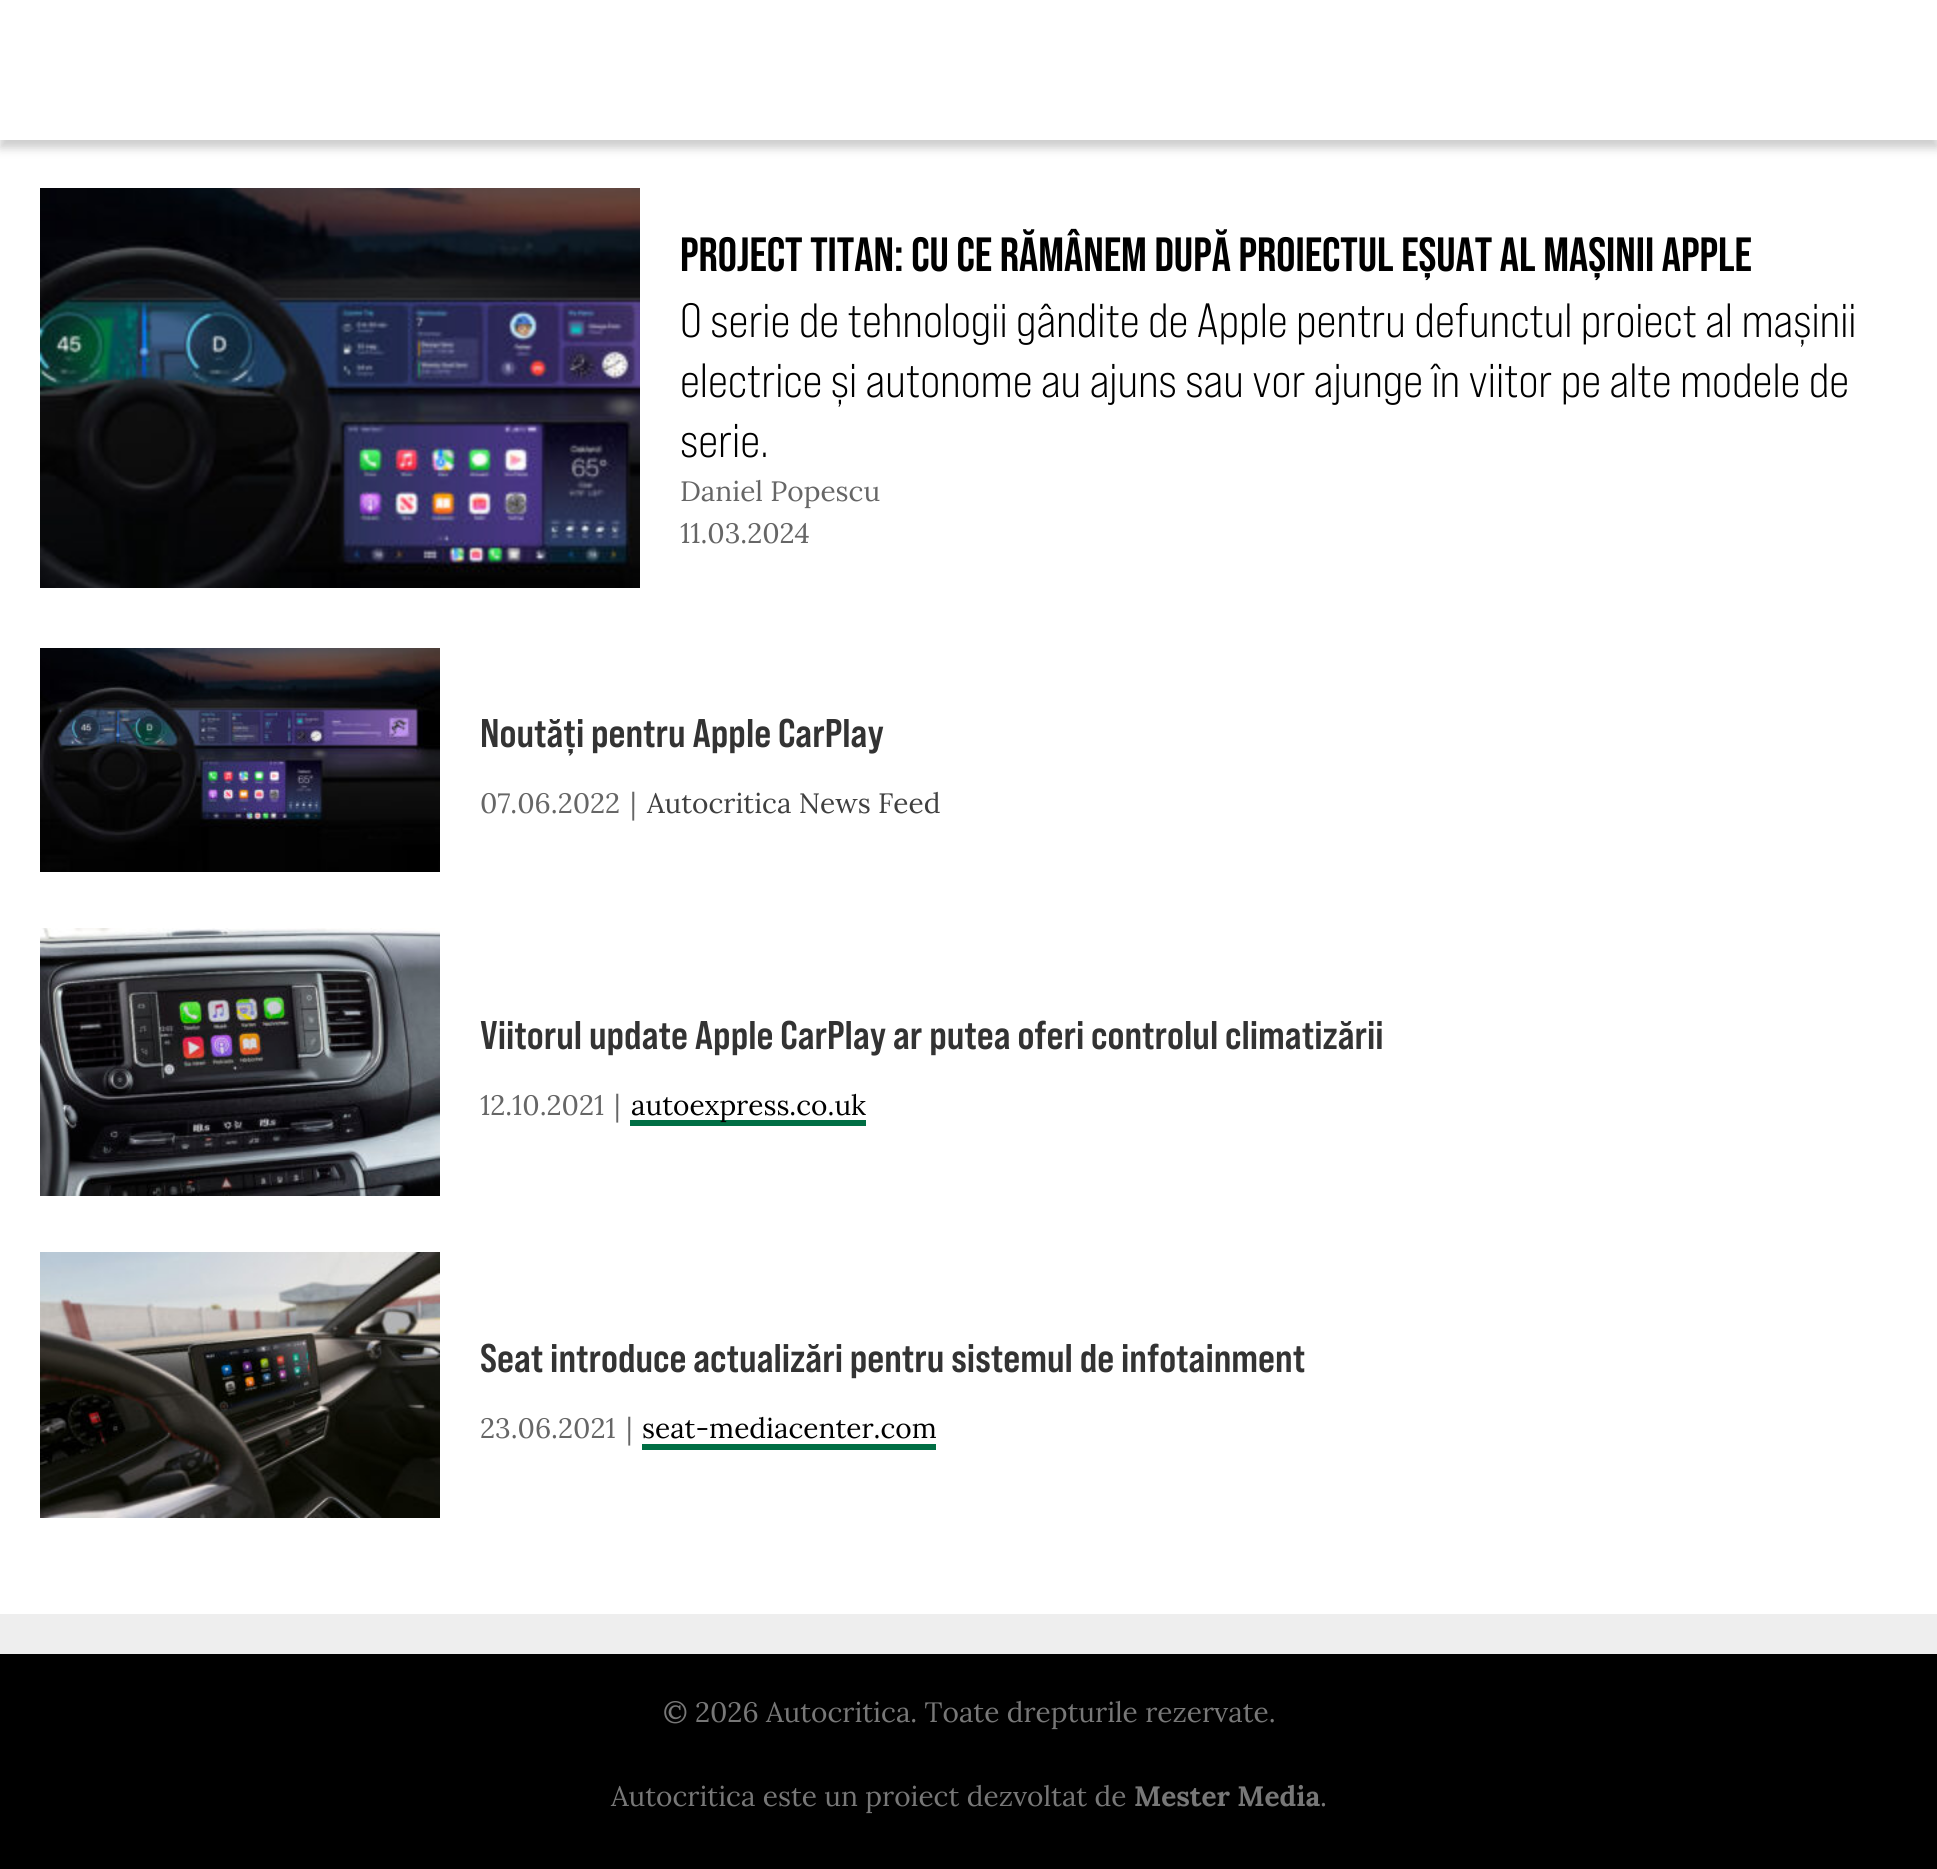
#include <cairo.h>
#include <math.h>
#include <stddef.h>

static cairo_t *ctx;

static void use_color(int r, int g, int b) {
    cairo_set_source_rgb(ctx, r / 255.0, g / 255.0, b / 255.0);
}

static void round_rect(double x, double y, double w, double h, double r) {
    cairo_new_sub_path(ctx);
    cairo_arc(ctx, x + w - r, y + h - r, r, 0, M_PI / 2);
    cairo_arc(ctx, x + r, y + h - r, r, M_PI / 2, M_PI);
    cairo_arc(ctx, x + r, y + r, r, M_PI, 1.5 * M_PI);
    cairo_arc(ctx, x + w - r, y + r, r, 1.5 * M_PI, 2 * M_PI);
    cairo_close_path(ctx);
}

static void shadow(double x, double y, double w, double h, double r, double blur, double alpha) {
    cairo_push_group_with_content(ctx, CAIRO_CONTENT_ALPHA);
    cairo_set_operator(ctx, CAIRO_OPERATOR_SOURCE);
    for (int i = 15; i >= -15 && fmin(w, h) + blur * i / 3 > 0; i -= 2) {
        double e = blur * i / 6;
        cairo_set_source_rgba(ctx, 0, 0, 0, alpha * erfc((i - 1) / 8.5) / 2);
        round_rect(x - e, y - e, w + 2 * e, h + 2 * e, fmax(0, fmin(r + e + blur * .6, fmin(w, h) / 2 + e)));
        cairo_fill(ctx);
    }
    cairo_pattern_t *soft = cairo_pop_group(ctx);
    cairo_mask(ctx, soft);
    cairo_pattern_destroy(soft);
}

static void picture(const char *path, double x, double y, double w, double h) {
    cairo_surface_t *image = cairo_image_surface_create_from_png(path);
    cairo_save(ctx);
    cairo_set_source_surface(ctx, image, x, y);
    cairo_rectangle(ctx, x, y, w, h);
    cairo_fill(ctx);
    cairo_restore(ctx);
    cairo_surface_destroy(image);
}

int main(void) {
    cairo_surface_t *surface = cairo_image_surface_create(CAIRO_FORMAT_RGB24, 1937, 1869);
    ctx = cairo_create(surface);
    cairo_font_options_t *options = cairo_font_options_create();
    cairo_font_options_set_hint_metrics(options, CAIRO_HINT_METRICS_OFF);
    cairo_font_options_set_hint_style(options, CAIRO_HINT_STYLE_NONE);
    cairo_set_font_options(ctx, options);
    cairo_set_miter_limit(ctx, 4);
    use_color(238, 238, 238);
    cairo_paint(ctx);
    use_color(255, 255, 255);
    cairo_rectangle(ctx, 0, 140, 1937, 1474);
    cairo_fill(ctx);
    use_color(0, 0, 0);
    shadow(0, 8, 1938, 140, 0, 5, 0.2);
    use_color(255, 255, 255);
    cairo_rectangle(ctx, 0, 0, 1937, 140);
    cairo_fill(ctx);
    picture("img1.png", 40, 188, 600, 400);
    cairo_select_font_face(ctx, "Bebas Neue", CAIRO_FONT_SLANT_NORMAL, CAIRO_FONT_WEIGHT_BOLD);
    cairo_set_font_size(ctx, 48);
    use_color(0, 0, 0);
    cairo_move_to(ctx, 680, 271);
    cairo_show_text(ctx, "PROJECT TITAN: CU CE RĂMÂNEM DUPĂ PROIECTUL EȘUAT AL MAȘINII APPLE");
    cairo_select_font_face(ctx, "Bebas Neue", CAIRO_FONT_SLANT_NORMAL, CAIRO_FONT_WEIGHT_NORMAL);
    cairo_move_to(ctx, 680, 337);
    cairo_show_text(ctx, "O serie de tehnologii gândite de Apple pentru defunctul proiect al mașinii");
    cairo_move_to(ctx, 680, 397);
    cairo_show_text(ctx, "electrice și autonome au ajuns sau vor ajunge în viitor pe alte modele de");
    cairo_move_to(ctx, 680, 457);
    cairo_show_text(ctx, "serie.");
    cairo_select_font_face(ctx, "Lora", CAIRO_FONT_SLANT_NORMAL, CAIRO_FONT_WEIGHT_NORMAL);
    cairo_set_font_size(ctx, 28);
    use_color(102, 102, 102);
    cairo_move_to(ctx, 680, 501);
    cairo_show_text(ctx, "Daniel Popescu");
    cairo_move_to(ctx, 680, 543);
    cairo_show_text(ctx, "11.03.2024");
    picture("img2.png", 40, 648, 400, 224);
    cairo_select_font_face(ctx, "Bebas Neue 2", CAIRO_FONT_SLANT_NORMAL, CAIRO_FONT_WEIGHT_BOLD);
    cairo_set_font_size(ctx, 40);
    use_color(51, 51, 51);
    cairo_move_to(ctx, 480, 747);
    cairo_show_text(ctx, "Noutăți pentru Apple CarPlay");
    cairo_select_font_face(ctx, "Lora", CAIRO_FONT_SLANT_NORMAL, CAIRO_FONT_WEIGHT_NORMAL);
    cairo_set_font_size(ctx, 28);
    use_color(102, 102, 102);
    cairo_move_to(ctx, 480, 813);
    cairo_show_text(ctx, "07.06.2022");
    cairo_move_to(ctx, 630, 813);
    cairo_show_text(ctx, "|");
    use_color(64, 64, 64);
    cairo_move_to(ctx, 647, 813);
    cairo_show_text(ctx, "Autocritica News Feed");
    picture("img3.png", 40, 928, 400, 268);
    cairo_select_font_face(ctx, "Bebas Neue 2", CAIRO_FONT_SLANT_NORMAL, CAIRO_FONT_WEIGHT_BOLD);
    cairo_set_font_size(ctx, 40);
    use_color(51, 51, 51);
    cairo_move_to(ctx, 480, 1049);
    cairo_show_text(ctx, "Viitorul update Apple CarPlay ar putea oferi controlul climatizării");
    cairo_select_font_face(ctx, "Lora", CAIRO_FONT_SLANT_NORMAL, CAIRO_FONT_WEIGHT_NORMAL);
    cairo_set_font_size(ctx, 28);
    use_color(102, 102, 102);
    cairo_move_to(ctx, 480, 1115);
    cairo_show_text(ctx, "12.10.2021");
    cairo_move_to(ctx, 614, 1115);
    cairo_show_text(ctx, "|");
    use_color(0, 110, 68);
    cairo_rectangle(ctx, 630, 1120, 236, 6);
    cairo_fill(ctx);
    use_color(0, 0, 0);
    cairo_move_to(ctx, 631, 1115);
    cairo_show_text(ctx, "autoexpress.co.uk");
    picture("img4.png", 40, 1252, 400, 266);
    cairo_select_font_face(ctx, "Bebas Neue 2", CAIRO_FONT_SLANT_NORMAL, CAIRO_FONT_WEIGHT_BOLD);
    cairo_set_font_size(ctx, 40);
    use_color(51, 51, 51);
    cairo_move_to(ctx, 480, 1372);
    cairo_show_text(ctx, "Seat introduce actualizări pentru sistemul de infotainment");
    cairo_select_font_face(ctx, "Lora", CAIRO_FONT_SLANT_NORMAL, CAIRO_FONT_WEIGHT_NORMAL);
    cairo_set_font_size(ctx, 28);
    use_color(102, 102, 102);
    cairo_move_to(ctx, 480, 1438);
    cairo_show_text(ctx, "23.06.2021");
    cairo_move_to(ctx, 626, 1438);
    cairo_show_text(ctx, "|");
    use_color(0, 110, 68);
    cairo_rectangle(ctx, 642, 1444, 294, 6);
    cairo_fill(ctx);
    use_color(0, 0, 0);
    cairo_move_to(ctx, 642, 1438);
    cairo_show_text(ctx, "seat-mediacenter.com");
    cairo_rectangle(ctx, 0, 1654, 1937, 215);
    cairo_fill(ctx);
    use_color(119, 119, 119);
    cairo_move_to(ctx, 663, 1722);
    cairo_show_text(ctx, "© 2026 Autocritica. Toate drepturile rezervate.");
    cairo_move_to(ctx, 611, 1806);
    cairo_show_text(ctx, "Autocritica este un proiect dezvoltat de");
    cairo_select_font_face(ctx, "Lora", CAIRO_FONT_SLANT_NORMAL, CAIRO_FONT_WEIGHT_BOLD);
    cairo_move_to(ctx, 1134, 1806);
    cairo_show_text(ctx, "Mester Media");
    cairo_select_font_face(ctx, "Lora", CAIRO_FONT_SLANT_NORMAL, CAIRO_FONT_WEIGHT_NORMAL);
    cairo_move_to(ctx, 1320, 1806);
    cairo_show_text(ctx, ".");
    cairo_surface_write_to_png(surface, "result.png");
    cairo_font_options_destroy(options);
    cairo_destroy(ctx);
    cairo_surface_destroy(surface);
    return 0;
}
